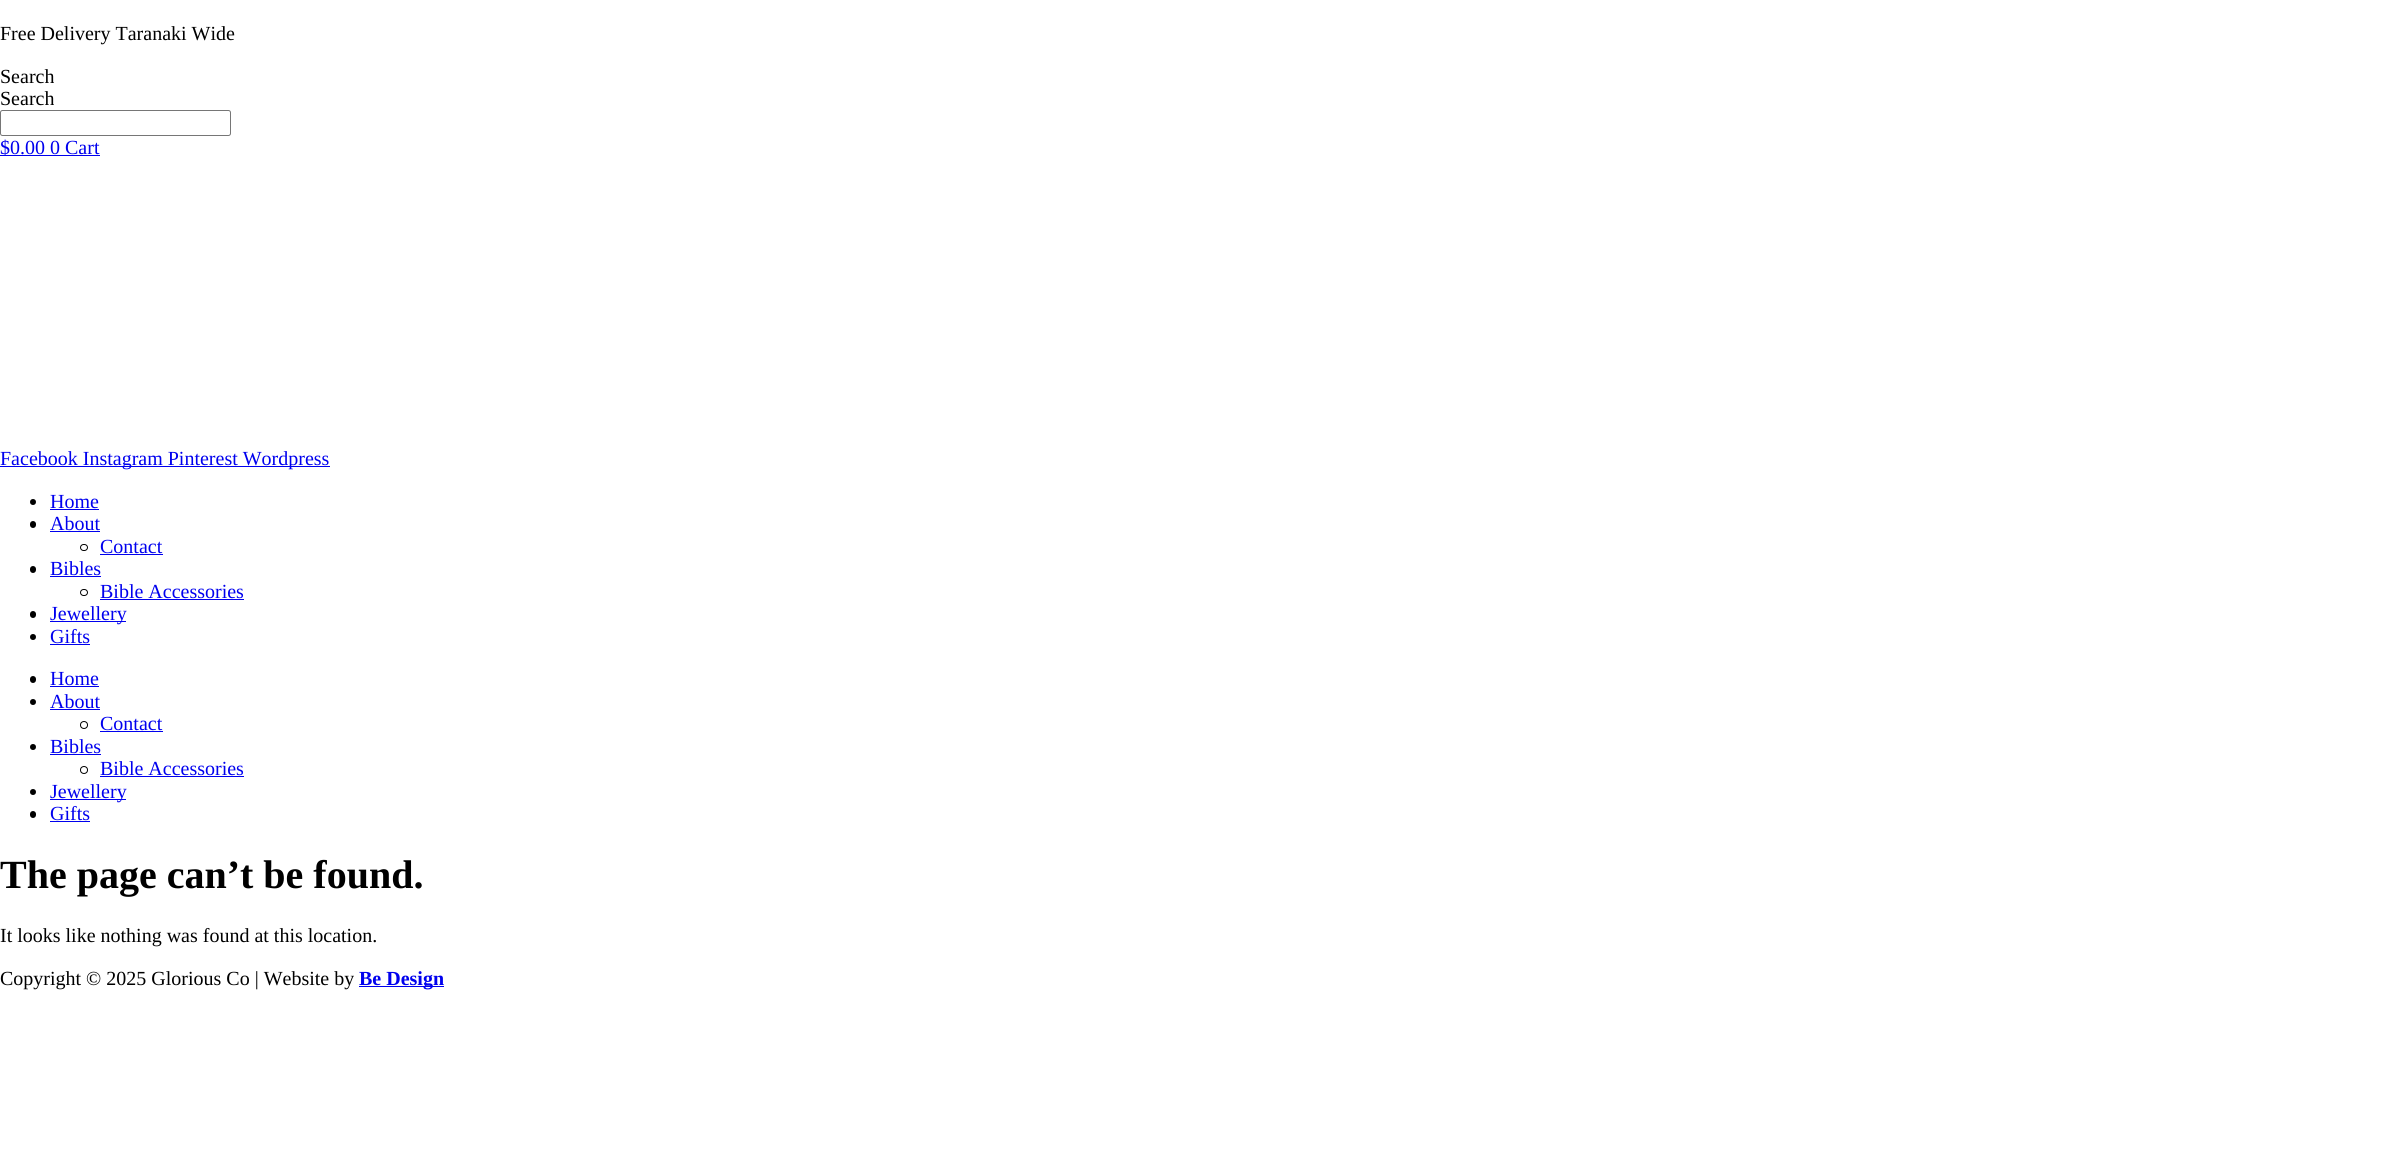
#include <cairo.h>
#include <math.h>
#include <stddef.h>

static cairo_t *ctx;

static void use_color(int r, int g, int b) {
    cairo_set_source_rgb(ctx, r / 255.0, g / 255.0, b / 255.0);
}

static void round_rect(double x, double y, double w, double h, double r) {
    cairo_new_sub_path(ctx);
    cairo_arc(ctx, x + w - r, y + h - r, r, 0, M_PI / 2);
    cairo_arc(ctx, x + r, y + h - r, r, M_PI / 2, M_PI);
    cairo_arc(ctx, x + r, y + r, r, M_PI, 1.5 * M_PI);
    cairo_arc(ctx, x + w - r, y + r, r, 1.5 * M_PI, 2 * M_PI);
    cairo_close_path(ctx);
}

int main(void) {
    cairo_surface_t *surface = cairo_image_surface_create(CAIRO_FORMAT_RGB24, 2389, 1175);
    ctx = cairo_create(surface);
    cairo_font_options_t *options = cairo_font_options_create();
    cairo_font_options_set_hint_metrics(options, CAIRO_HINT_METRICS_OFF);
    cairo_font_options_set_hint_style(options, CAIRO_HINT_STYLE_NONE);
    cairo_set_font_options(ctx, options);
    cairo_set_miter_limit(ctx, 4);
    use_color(255, 255, 255);
    cairo_paint(ctx);
    cairo_select_font_face(ctx, "Liberation Serif", CAIRO_FONT_SLANT_NORMAL, CAIRO_FONT_WEIGHT_NORMAL);
    cairo_set_font_size(ctx, 20);
    use_color(0, 0, 0);
    cairo_move_to(ctx, 0, 40);
    cairo_show_text(ctx, "Free Delivery Taranaki Wide");
    cairo_move_to(ctx, 0, 83);
    cairo_show_text(ctx, "Search");
    cairo_move_to(ctx, 0, 105);
    cairo_show_text(ctx, "Search");
    round_rect(0.5, 110.5, 230, 25, 2);
    use_color(118, 118, 118);
    cairo_set_line_width(ctx, 1);
    cairo_stroke(ctx);
    use_color(0, 0, 238);
    cairo_rectangle(ctx, 0, 155, 100, 1);
    cairo_fill(ctx);
    cairo_move_to(ctx, 0, 154);
    cairo_show_text(ctx, "$0.00 0 Cart");
    cairo_rectangle(ctx, 0, 466, 330, 1);
    cairo_fill(ctx);
    cairo_move_to(ctx, 0, 465);
    cairo_show_text(ctx, "Facebook Instagram Pinterest Wordpress");
    use_color(0, 0, 0);
    cairo_new_path(ctx);
    cairo_arc(ctx, 33, 502, 3, 0, 2 * M_PI);
    cairo_fill(ctx);
    use_color(0, 0, 238);
    cairo_move_to(ctx, 50, 508);
    cairo_show_text(ctx, "Home");
    cairo_rectangle(ctx, 50, 509, 49, 1);
    cairo_fill(ctx);
    use_color(0, 0, 0);
    round_rect(30, 521, 6, 7, 3);
    cairo_fill(ctx);
    use_color(0, 0, 238);
    cairo_move_to(ctx, 50, 530);
    cairo_show_text(ctx, "About");
    cairo_rectangle(ctx, 50, 531, 50, 1);
    cairo_fill(ctx);
    round_rect(80.5, 544.5, 7, 6, 3);
    use_color(0, 0, 0);
    cairo_stroke(ctx);
    use_color(0, 0, 238);
    cairo_move_to(ctx, 100, 553);
    cairo_show_text(ctx, "Contact");
    cairo_rectangle(ctx, 100, 554, 63, 1);
    cairo_fill(ctx);
    use_color(0, 0, 0);
    round_rect(30, 566, 6, 7, 3);
    cairo_fill(ctx);
    use_color(0, 0, 238);
    cairo_move_to(ctx, 50, 575);
    cairo_show_text(ctx, "Bibles");
    cairo_rectangle(ctx, 50, 576, 51, 1);
    cairo_fill(ctx);
    round_rect(80.5, 589.5, 7, 6, 3);
    use_color(0, 0, 0);
    cairo_stroke(ctx);
    use_color(0, 0, 238);
    cairo_move_to(ctx, 100, 598);
    cairo_show_text(ctx, "Bible Accessories");
    cairo_rectangle(ctx, 100, 599, 144, 1);
    cairo_fill(ctx);
    use_color(0, 0, 0);
    round_rect(30, 611, 6, 7, 3);
    cairo_fill(ctx);
    use_color(0, 0, 238);
    cairo_rectangle(ctx, 50, 621, 76, 1);
    cairo_fill(ctx);
    cairo_move_to(ctx, 50, 620);
    cairo_show_text(ctx, "Jewellery");
    use_color(0, 0, 0);
    cairo_new_path(ctx);
    cairo_arc(ctx, 33, 637, 3, 0, 2 * M_PI);
    cairo_fill(ctx);
    use_color(0, 0, 238);
    cairo_move_to(ctx, 50, 643);
    cairo_show_text(ctx, "Gifts");
    cairo_rectangle(ctx, 50, 644, 40, 1);
    cairo_fill(ctx);
    use_color(0, 0, 0);
    round_rect(30, 676, 6, 7, 3);
    cairo_fill(ctx);
    use_color(0, 0, 238);
    cairo_move_to(ctx, 50, 685);
    cairo_show_text(ctx, "Home");
    cairo_rectangle(ctx, 50, 686, 49, 1);
    cairo_fill(ctx);
    use_color(0, 0, 0);
    cairo_arc(ctx, 33, 702, 3, 0, 2 * M_PI);
    cairo_fill(ctx);
    use_color(0, 0, 238);
    cairo_move_to(ctx, 50, 708);
    cairo_show_text(ctx, "About");
    cairo_rectangle(ctx, 50, 709, 50, 1);
    cairo_fill(ctx);
    cairo_arc(ctx, 84, 725, 3.5, 0, 2 * M_PI);
    use_color(0, 0, 0);
    cairo_stroke(ctx);
    use_color(0, 0, 238);
    cairo_move_to(ctx, 100, 730);
    cairo_show_text(ctx, "Contact");
    cairo_rectangle(ctx, 100, 731, 63, 1);
    cairo_fill(ctx);
    use_color(0, 0, 0);
    cairo_arc(ctx, 33, 747, 3, 0, 2 * M_PI);
    cairo_fill(ctx);
    use_color(0, 0, 238);
    cairo_move_to(ctx, 50, 753);
    cairo_show_text(ctx, "Bibles");
    cairo_rectangle(ctx, 50, 754, 51, 1);
    cairo_fill(ctx);
    cairo_arc(ctx, 84, 770, 3.5, 0, 2 * M_PI);
    use_color(0, 0, 0);
    cairo_stroke(ctx);
    use_color(0, 0, 238);
    cairo_move_to(ctx, 100, 775);
    cairo_show_text(ctx, "Bible Accessories");
    cairo_rectangle(ctx, 100, 776, 144, 1);
    cairo_fill(ctx);
    use_color(0, 0, 0);
    cairo_arc(ctx, 33, 792, 3, 0, 2 * M_PI);
    cairo_fill(ctx);
    use_color(0, 0, 238);
    cairo_rectangle(ctx, 50, 799, 76, 1);
    cairo_fill(ctx);
    cairo_move_to(ctx, 50, 798);
    cairo_show_text(ctx, "Jewellery");
    use_color(0, 0, 0);
    round_rect(30, 811, 6, 7, 3);
    cairo_fill(ctx);
    use_color(0, 0, 238);
    cairo_move_to(ctx, 50, 820);
    cairo_show_text(ctx, "Gifts");
    cairo_rectangle(ctx, 50, 821, 40, 1);
    cairo_fill(ctx);
    cairo_select_font_face(ctx, "Liberation Serif", CAIRO_FONT_SLANT_NORMAL, CAIRO_FONT_WEIGHT_BOLD);
    cairo_set_font_size(ctx, 40);
    use_color(0, 0, 0);
    cairo_move_to(ctx, 0, 888);
    cairo_show_text(ctx, "The page can’t be found.");
    cairo_select_font_face(ctx, "Liberation Serif", CAIRO_FONT_SLANT_NORMAL, CAIRO_FONT_WEIGHT_NORMAL);
    cairo_set_font_size(ctx, 20);
    cairo_move_to(ctx, 0, 942);
    cairo_show_text(ctx, "It looks like nothing was found at this location.");
    cairo_move_to(ctx, 0, 985);
    cairo_show_text(ctx, "Copyright © 2025 Glorious Co | Website by");
    use_color(0, 0, 238);
    cairo_rectangle(ctx, 359, 986, 85, 1);
    cairo_fill(ctx);
    cairo_select_font_face(ctx, "Liberation Serif", CAIRO_FONT_SLANT_NORMAL, CAIRO_FONT_WEIGHT_BOLD);
    cairo_move_to(ctx, 359, 985);
    cairo_show_text(ctx, "Be Design");
    cairo_surface_write_to_png(surface, "result.png");
    cairo_font_options_destroy(options);
    cairo_destroy(ctx);
    cairo_surface_destroy(surface);
    return 0;
}
